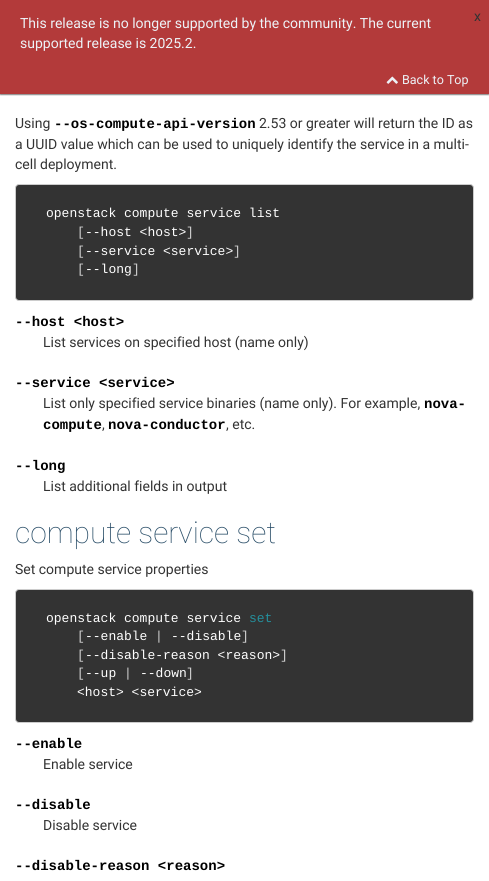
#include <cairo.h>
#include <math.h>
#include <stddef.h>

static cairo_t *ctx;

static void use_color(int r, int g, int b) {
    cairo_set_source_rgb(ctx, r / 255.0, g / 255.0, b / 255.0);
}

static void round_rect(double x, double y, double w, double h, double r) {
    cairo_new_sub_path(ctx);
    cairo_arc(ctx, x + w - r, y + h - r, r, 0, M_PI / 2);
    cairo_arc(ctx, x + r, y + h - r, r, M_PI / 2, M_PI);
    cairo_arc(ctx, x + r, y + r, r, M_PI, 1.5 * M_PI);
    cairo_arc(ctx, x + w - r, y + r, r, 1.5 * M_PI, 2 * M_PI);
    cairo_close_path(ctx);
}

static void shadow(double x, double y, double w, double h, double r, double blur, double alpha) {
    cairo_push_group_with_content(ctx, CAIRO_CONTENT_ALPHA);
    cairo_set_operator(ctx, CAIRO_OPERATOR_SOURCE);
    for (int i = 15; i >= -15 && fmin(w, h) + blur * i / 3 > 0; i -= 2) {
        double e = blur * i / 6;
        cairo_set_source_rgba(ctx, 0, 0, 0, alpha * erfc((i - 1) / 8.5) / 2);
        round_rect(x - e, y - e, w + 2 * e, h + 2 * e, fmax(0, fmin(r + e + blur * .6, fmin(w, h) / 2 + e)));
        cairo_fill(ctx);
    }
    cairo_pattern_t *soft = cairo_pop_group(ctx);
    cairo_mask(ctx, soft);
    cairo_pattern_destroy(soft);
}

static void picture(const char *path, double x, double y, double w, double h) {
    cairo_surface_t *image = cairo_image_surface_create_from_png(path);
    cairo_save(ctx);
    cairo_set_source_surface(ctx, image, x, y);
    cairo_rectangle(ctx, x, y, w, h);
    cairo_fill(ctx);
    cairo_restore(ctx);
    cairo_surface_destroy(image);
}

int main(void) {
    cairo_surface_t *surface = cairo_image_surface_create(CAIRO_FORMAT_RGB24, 489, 881);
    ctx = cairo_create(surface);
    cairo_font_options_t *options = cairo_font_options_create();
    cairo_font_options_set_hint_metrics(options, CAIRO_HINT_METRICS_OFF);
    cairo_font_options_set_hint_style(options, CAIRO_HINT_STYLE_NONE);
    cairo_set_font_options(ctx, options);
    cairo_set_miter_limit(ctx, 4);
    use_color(255, 255, 255);
    cairo_paint(ctx);
    use_color(0, 0, 0);
    shadow(0, 1, 489, 94, 0, 0.5, 0.46);
    use_color(179, 58, 58);
    cairo_rectangle(ctx, 0, 0, 489, 94);
    cairo_fill(ctx);
    cairo_select_font_face(ctx, "Roboto", CAIRO_FONT_SLANT_NORMAL, CAIRO_FONT_WEIGHT_NORMAL);
    cairo_set_font_size(ctx, 14);
    use_color(237, 242, 247);
    cairo_move_to(ctx, 20, 28);
    cairo_show_text(ctx, "This release is no longer supported by the community. The current");
    cairo_move_to(ctx, 20, 48);
    cairo_show_text(ctx, "supported release is 2025.2.");
    picture("img1.png", 386, 76, 12, 8);
    cairo_set_font_size(ctx, 12.5);
    cairo_move_to(ctx, 402, 84);
    cairo_show_text(ctx, "Back to Top");
    cairo_set_font_size(ctx, 14);
    use_color(51, 51, 51);
    cairo_move_to(ctx, 474, 21);
    cairo_show_text(ctx, "x");
    cairo_move_to(ctx, 15, 128);
    cairo_show_text(ctx, "Using");
    cairo_select_font_face(ctx, "Liberation Mono", CAIRO_FONT_SLANT_NORMAL, CAIRO_FONT_WEIGHT_BOLD);
    use_color(0, 0, 0);
    cairo_move_to(ctx, 54, 128);
    cairo_show_text(ctx, "--os-compute-api-version");
    cairo_select_font_face(ctx, "Roboto", CAIRO_FONT_SLANT_NORMAL, CAIRO_FONT_WEIGHT_NORMAL);
    use_color(51, 51, 51);
    cairo_move_to(ctx, 259, 128);
    cairo_show_text(ctx, "2.53 or greater will return the ID as");
    cairo_move_to(ctx, 15, 149);
    cairo_show_text(ctx, "a UUID value which can be used to uniquely identify the service in a multi-");
    cairo_move_to(ctx, 15, 169);
    cairo_show_text(ctx, "cell deployment.");
    round_rect(15.5, 184.5, 458, 116, 3.5);
    cairo_fill_preserve(ctx);
    use_color(204, 204, 204);
    cairo_set_line_width(ctx, 1);
    cairo_stroke(ctx);
    cairo_select_font_face(ctx, "Liberation Mono", CAIRO_FONT_SLANT_NORMAL, CAIRO_FONT_WEIGHT_NORMAL);
    cairo_set_font_size(ctx, 13);
    use_color(255, 255, 255);
    cairo_move_to(ctx, 46, 217);
    cairo_show_text(ctx, "openstack compute service list");
    use_color(208, 208, 208);
    cairo_move_to(ctx, 77, 236);
    cairo_show_text(ctx, "[");
    use_color(255, 255, 255);
    cairo_move_to(ctx, 85, 236);
    cairo_show_text(ctx, "--host <host>");
    use_color(208, 208, 208);
    cairo_move_to(ctx, 186, 236);
    cairo_show_text(ctx, "]");
    cairo_move_to(ctx, 77, 255);
    cairo_show_text(ctx, "[");
    use_color(255, 255, 255);
    cairo_move_to(ctx, 85, 255);
    cairo_show_text(ctx, "--service <service>");
    use_color(208, 208, 208);
    cairo_move_to(ctx, 233, 255);
    cairo_show_text(ctx, "]");
    cairo_move_to(ctx, 77, 273);
    cairo_show_text(ctx, "[");
    use_color(255, 255, 255);
    cairo_move_to(ctx, 85, 273);
    cairo_show_text(ctx, "--long");
    use_color(208, 208, 208);
    cairo_move_to(ctx, 132, 273);
    cairo_show_text(ctx, "]");
    cairo_select_font_face(ctx, "Liberation Mono", CAIRO_FONT_SLANT_NORMAL, CAIRO_FONT_WEIGHT_BOLD);
    cairo_set_font_size(ctx, 14);
    use_color(0, 0, 0);
    cairo_move_to(ctx, 15, 326);
    cairo_show_text(ctx, "--host <host>");
    cairo_select_font_face(ctx, "Roboto", CAIRO_FONT_SLANT_NORMAL, CAIRO_FONT_WEIGHT_NORMAL);
    use_color(51, 51, 51);
    cairo_move_to(ctx, 43, 347);
    cairo_show_text(ctx, "List services on specified host (name only)");
    cairo_select_font_face(ctx, "Liberation Mono", CAIRO_FONT_SLANT_NORMAL, CAIRO_FONT_WEIGHT_BOLD);
    use_color(0, 0, 0);
    cairo_move_to(ctx, 15, 387);
    cairo_show_text(ctx, "--service <service>");
    cairo_select_font_face(ctx, "Roboto", CAIRO_FONT_SLANT_NORMAL, CAIRO_FONT_WEIGHT_NORMAL);
    use_color(51, 51, 51);
    cairo_move_to(ctx, 43, 408);
    cairo_show_text(ctx, "List only specified service binaries (name only). For example,");
    cairo_select_font_face(ctx, "Liberation Mono", CAIRO_FONT_SLANT_NORMAL, CAIRO_FONT_WEIGHT_BOLD);
    use_color(0, 0, 0);
    cairo_move_to(ctx, 424, 408);
    cairo_show_text(ctx, "nova-");
    cairo_move_to(ctx, 43, 429);
    cairo_show_text(ctx, "compute");
    cairo_select_font_face(ctx, "Roboto", CAIRO_FONT_SLANT_NORMAL, CAIRO_FONT_WEIGHT_NORMAL);
    use_color(51, 51, 51);
    cairo_move_to(ctx, 102, 429);
    cairo_show_text(ctx, ",");
    cairo_select_font_face(ctx, "Liberation Mono", CAIRO_FONT_SLANT_NORMAL, CAIRO_FONT_WEIGHT_BOLD);
    use_color(0, 0, 0);
    cairo_move_to(ctx, 108, 429);
    cairo_show_text(ctx, "nova-conductor");
    cairo_select_font_face(ctx, "Roboto", CAIRO_FONT_SLANT_NORMAL, CAIRO_FONT_WEIGHT_NORMAL);
    use_color(51, 51, 51);
    cairo_move_to(ctx, 226, 429);
    cairo_show_text(ctx, ", etc.");
    cairo_select_font_face(ctx, "Liberation Mono", CAIRO_FONT_SLANT_NORMAL, CAIRO_FONT_WEIGHT_BOLD);
    use_color(0, 0, 0);
    cairo_move_to(ctx, 15, 470);
    cairo_show_text(ctx, "--long");
    cairo_select_font_face(ctx, "Roboto", CAIRO_FONT_SLANT_NORMAL, CAIRO_FONT_WEIGHT_NORMAL);
    use_color(51, 51, 51);
    cairo_move_to(ctx, 43, 491);
    cairo_show_text(ctx, "List additional fields in output");
    cairo_select_font_face(ctx, "Roboto Thin", CAIRO_FONT_SLANT_NORMAL, CAIRO_FONT_WEIGHT_NORMAL);
    cairo_set_font_size(ctx, 30);
    use_color(42, 78, 104);
    cairo_move_to(ctx, 15, 543);
    cairo_show_text(ctx, "compute service set");
    cairo_select_font_face(ctx, "Roboto", CAIRO_FONT_SLANT_NORMAL, CAIRO_FONT_WEIGHT_NORMAL);
    cairo_set_font_size(ctx, 14);
    use_color(51, 51, 51);
    cairo_move_to(ctx, 15, 574);
    cairo_show_text(ctx, "Set compute service properties");
    round_rect(15.5, 589.5, 458, 133, 3.5);
    cairo_fill_preserve(ctx);
    use_color(204, 204, 204);
    cairo_stroke(ctx);
    cairo_select_font_face(ctx, "Liberation Mono", CAIRO_FONT_SLANT_NORMAL, CAIRO_FONT_WEIGHT_NORMAL);
    cairo_set_font_size(ctx, 13);
    use_color(255, 255, 255);
    cairo_move_to(ctx, 46, 622);
    cairo_show_text(ctx, "openstack compute service");
    use_color(36, 144, 157);
    cairo_move_to(ctx, 249, 622);
    cairo_show_text(ctx, "set");
    use_color(208, 208, 208);
    cairo_move_to(ctx, 77, 640);
    cairo_show_text(ctx, "[");
    use_color(255, 255, 255);
    cairo_move_to(ctx, 85, 640);
    cairo_show_text(ctx, "--enable");
    use_color(208, 208, 208);
    cairo_move_to(ctx, 155, 640);
    cairo_show_text(ctx, "|");
    use_color(255, 255, 255);
    cairo_move_to(ctx, 171, 640);
    cairo_show_text(ctx, "--disable");
    use_color(208, 208, 208);
    cairo_move_to(ctx, 241, 640);
    cairo_show_text(ctx, "]");
    cairo_move_to(ctx, 77, 659);
    cairo_show_text(ctx, "[");
    use_color(255, 255, 255);
    cairo_move_to(ctx, 85, 659);
    cairo_show_text(ctx, "--disable-reason <reason>");
    use_color(208, 208, 208);
    cairo_move_to(ctx, 280, 659);
    cairo_show_text(ctx, "]");
    cairo_move_to(ctx, 77, 677);
    cairo_show_text(ctx, "[");
    use_color(255, 255, 255);
    cairo_move_to(ctx, 85, 677);
    cairo_show_text(ctx, "--up");
    use_color(208, 208, 208);
    cairo_move_to(ctx, 124, 677);
    cairo_show_text(ctx, "|");
    use_color(255, 255, 255);
    cairo_move_to(ctx, 140, 677);
    cairo_show_text(ctx, "--down");
    use_color(208, 208, 208);
    cairo_move_to(ctx, 186, 677);
    cairo_show_text(ctx, "]");
    use_color(255, 255, 255);
    cairo_move_to(ctx, 77, 696);
    cairo_show_text(ctx, "<host> <service>");
    cairo_select_font_face(ctx, "Liberation Mono", CAIRO_FONT_SLANT_NORMAL, CAIRO_FONT_WEIGHT_BOLD);
    cairo_set_font_size(ctx, 14);
    use_color(0, 0, 0);
    cairo_move_to(ctx, 15, 748);
    cairo_show_text(ctx, "--enable");
    cairo_select_font_face(ctx, "Roboto", CAIRO_FONT_SLANT_NORMAL, CAIRO_FONT_WEIGHT_NORMAL);
    use_color(51, 51, 51);
    cairo_move_to(ctx, 43, 769);
    cairo_show_text(ctx, "Enable service");
    cairo_select_font_face(ctx, "Liberation Mono", CAIRO_FONT_SLANT_NORMAL, CAIRO_FONT_WEIGHT_BOLD);
    use_color(0, 0, 0);
    cairo_move_to(ctx, 15, 809);
    cairo_show_text(ctx, "--disable");
    cairo_select_font_face(ctx, "Roboto", CAIRO_FONT_SLANT_NORMAL, CAIRO_FONT_WEIGHT_NORMAL);
    use_color(51, 51, 51);
    cairo_move_to(ctx, 43, 830);
    cairo_show_text(ctx, "Disable service");
    cairo_select_font_face(ctx, "Liberation Mono", CAIRO_FONT_SLANT_NORMAL, CAIRO_FONT_WEIGHT_BOLD);
    use_color(0, 0, 0);
    cairo_move_to(ctx, 15, 870);
    cairo_show_text(ctx, "--disable-reason <reason>");
    cairo_surface_write_to_png(surface, "result.png");
    cairo_font_options_destroy(options);
    cairo_destroy(ctx);
    cairo_surface_destroy(surface);
    return 0;
}
